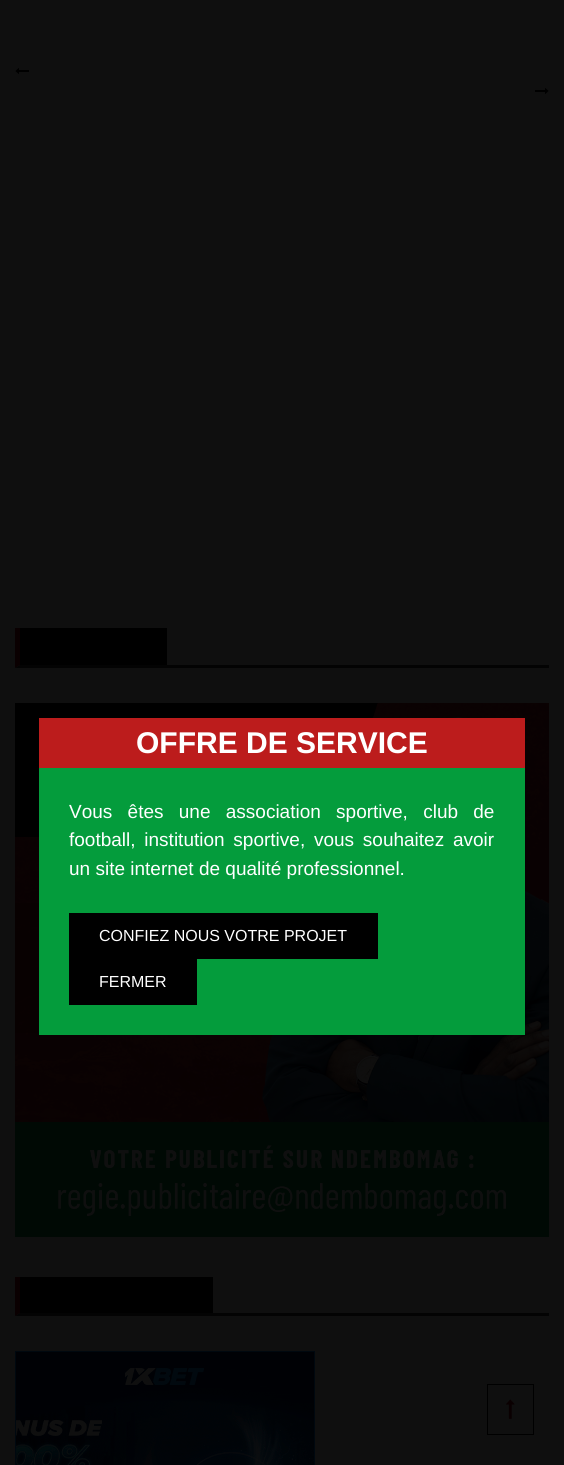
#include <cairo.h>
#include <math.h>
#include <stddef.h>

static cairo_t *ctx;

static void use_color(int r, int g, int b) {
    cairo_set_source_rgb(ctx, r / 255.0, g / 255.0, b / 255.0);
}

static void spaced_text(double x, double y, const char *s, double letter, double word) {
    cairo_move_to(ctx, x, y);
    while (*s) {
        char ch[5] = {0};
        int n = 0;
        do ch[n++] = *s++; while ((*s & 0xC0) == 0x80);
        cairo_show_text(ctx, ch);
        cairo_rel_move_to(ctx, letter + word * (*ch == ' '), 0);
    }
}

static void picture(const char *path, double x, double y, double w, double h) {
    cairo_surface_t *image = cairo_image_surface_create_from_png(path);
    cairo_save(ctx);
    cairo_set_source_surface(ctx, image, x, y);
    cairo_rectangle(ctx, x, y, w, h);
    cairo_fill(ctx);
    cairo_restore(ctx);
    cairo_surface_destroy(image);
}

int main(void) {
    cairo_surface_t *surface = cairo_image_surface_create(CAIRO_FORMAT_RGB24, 564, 1465);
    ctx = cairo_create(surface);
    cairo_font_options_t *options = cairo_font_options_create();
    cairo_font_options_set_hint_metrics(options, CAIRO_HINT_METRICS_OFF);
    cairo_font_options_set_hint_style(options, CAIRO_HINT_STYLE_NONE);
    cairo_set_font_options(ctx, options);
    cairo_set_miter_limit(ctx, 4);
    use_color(15, 15, 15);
    cairo_paint(ctx);
    picture("img1.png", 15, 68, 14, 6);
    picture("img2.png", 535, 88, 14, 6);
    use_color(3, 3, 3);
    cairo_new_path(ctx);
    cairo_move_to(ctx, 549, 668);
    cairo_line_to(ctx, 15, 668);
    cairo_line_to(ctx, 20, 665);
    cairo_line_to(ctx, 549, 665);
    cairo_close_path(ctx);
    cairo_fill(ctx);
    use_color(10, 0, 1);
    cairo_new_path(ctx);
    cairo_move_to(ctx, 15, 668);
    cairo_line_to(ctx, 15, 628);
    cairo_line_to(ctx, 20, 628);
    cairo_line_to(ctx, 20, 665);
    cairo_close_path(ctx);
    cairo_fill(ctx);
    use_color(0, 0, 0);
    cairo_rectangle(ctx, 20, 628, 147, 37);
    cairo_fill(ctx);
    picture("img3.png", 15, 703, 534, 534);
    use_color(3, 3, 3);
    cairo_new_path(ctx);
    cairo_move_to(ctx, 549, 1316);
    cairo_line_to(ctx, 15, 1316);
    cairo_line_to(ctx, 20, 1313);
    cairo_line_to(ctx, 549, 1313);
    cairo_close_path(ctx);
    cairo_fill(ctx);
    use_color(10, 0, 1);
    cairo_new_path(ctx);
    cairo_move_to(ctx, 15, 1316);
    cairo_line_to(ctx, 15, 1277);
    cairo_line_to(ctx, 20, 1277);
    cairo_line_to(ctx, 20, 1313);
    cairo_close_path(ctx);
    cairo_fill(ctx);
    use_color(0, 0, 0);
    cairo_rectangle(ctx, 20, 1277, 193, 36);
    cairo_fill(ctx);
    picture("img4.png", 15, 1351, 300, 114);
    use_color(188, 28, 28);
    cairo_rectangle(ctx, 39, 718, 486, 50);
    cairo_fill(ctx);
    cairo_select_font_face(ctx, "Liberation Sans", CAIRO_FONT_SLANT_NORMAL, CAIRO_FONT_WEIGHT_BOLD);
    cairo_set_font_size(ctx, 30);
    use_color(255, 255, 255);
    cairo_move_to(ctx, 136, 753);
    cairo_show_text(ctx, "OFFRE DE SERVICE");
    use_color(4, 156, 60);
    cairo_rectangle(ctx, 39, 768, 486, 267);
    cairo_fill(ctx);
    cairo_select_font_face(ctx, "Liberation Sans", CAIRO_FONT_SLANT_NORMAL, CAIRO_FONT_WEIGHT_NORMAL);
    cairo_set_font_size(ctx, 19);
    use_color(255, 255, 255);
    spaced_text(69, 818, "Vous êtes une association sportive, club de", 0, 10);
    spaced_text(69, 846, "football, institution sportive, vous souhaitez avoir", 0, 3.5);
    cairo_move_to(ctx, 69, 875);
    cairo_show_text(ctx, "un site internet de qualité professionnel.");
    use_color(0, 0, 0);
    cairo_rectangle(ctx, 69, 913, 309, 46);
    cairo_fill(ctx);
    cairo_set_font_size(ctx, 16);
    use_color(255, 255, 255);
    cairo_move_to(ctx, 99, 941);
    cairo_show_text(ctx, "CONFIEZ NOUS VOTRE PROJET");
    use_color(0, 0, 0);
    cairo_rectangle(ctx, 69, 959, 128, 46);
    cairo_fill(ctx);
    use_color(255, 255, 255);
    cairo_move_to(ctx, 99, 987);
    cairo_show_text(ctx, "FERMER");
    cairo_rectangle(ctx, 487.5, 1384.5, 46, 50);
    use_color(0, 0, 0);
    cairo_set_line_width(ctx, 1);
    cairo_stroke(ctx);
    picture("img5.png", 506, 1399, 9, 20);
    cairo_surface_write_to_png(surface, "result.png");
    cairo_font_options_destroy(options);
    cairo_destroy(ctx);
    cairo_surface_destroy(surface);
    return 0;
}
